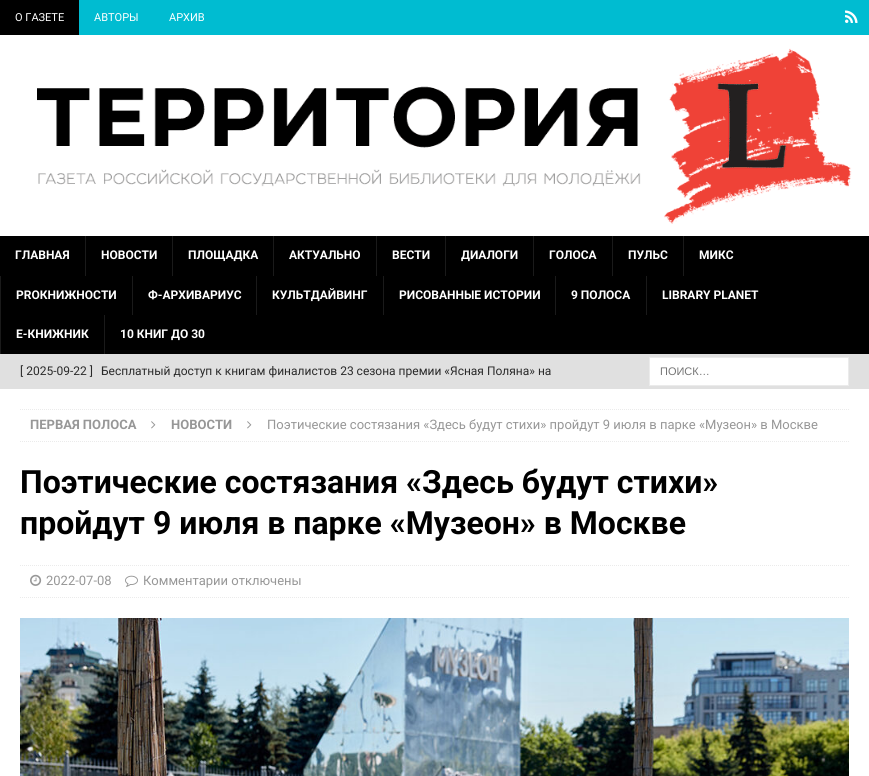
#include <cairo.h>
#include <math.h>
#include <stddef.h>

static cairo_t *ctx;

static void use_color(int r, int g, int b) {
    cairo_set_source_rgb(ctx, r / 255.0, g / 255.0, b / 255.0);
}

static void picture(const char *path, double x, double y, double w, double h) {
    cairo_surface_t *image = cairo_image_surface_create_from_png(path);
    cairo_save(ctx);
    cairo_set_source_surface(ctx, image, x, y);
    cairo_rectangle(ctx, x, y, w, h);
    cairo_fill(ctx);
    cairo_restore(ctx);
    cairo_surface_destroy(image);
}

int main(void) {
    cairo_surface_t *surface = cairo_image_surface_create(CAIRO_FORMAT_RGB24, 869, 776);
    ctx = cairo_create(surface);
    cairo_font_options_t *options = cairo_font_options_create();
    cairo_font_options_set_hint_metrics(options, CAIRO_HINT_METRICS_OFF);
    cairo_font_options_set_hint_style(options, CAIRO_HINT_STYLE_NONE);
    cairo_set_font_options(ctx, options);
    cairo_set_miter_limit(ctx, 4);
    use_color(255, 255, 255);
    cairo_paint(ctx);
    use_color(0, 188, 209);
    cairo_rectangle(ctx, 79, 0, 790, 35);
    cairo_fill(ctx);
    use_color(0, 0, 0);
    cairo_rectangle(ctx, 0, 0, 79, 35);
    cairo_fill(ctx);
    cairo_select_font_face(ctx, "Roboto", CAIRO_FONT_SLANT_NORMAL, CAIRO_FONT_WEIGHT_NORMAL);
    cairo_set_font_size(ctx, 11);
    use_color(255, 255, 255);
    cairo_move_to(ctx, 15, 21);
    cairo_show_text(ctx, "О ГАЗЕТЕ");
    cairo_move_to(ctx, 94, 21);
    cairo_show_text(ctx, "АВТОРЫ");
    cairo_move_to(ctx, 169, 21);
    cairo_show_text(ctx, "АРХИВ");
    picture("img1.png", 845, 10, 13, 13);
    picture("img2.png", 37, 48, 815, 176);
    use_color(0, 0, 0);
    cairo_rectangle(ctx, 0, 236, 869, 118);
    cairo_fill(ctx);
    cairo_select_font_face(ctx, "Roboto", CAIRO_FONT_SLANT_NORMAL, CAIRO_FONT_WEIGHT_BOLD);
    cairo_set_font_size(ctx, 12);
    use_color(255, 255, 255);
    cairo_move_to(ctx, 15, 259);
    cairo_show_text(ctx, "ГЛАВНАЯ");
    use_color(26, 26, 26);
    cairo_rectangle(ctx, 85, 236, 1, 40);
    cairo_fill(ctx);
    use_color(255, 255, 255);
    cairo_move_to(ctx, 101, 259);
    cairo_show_text(ctx, "НОВОСТИ");
    use_color(26, 26, 26);
    cairo_rectangle(ctx, 172, 236, 1, 40);
    cairo_fill(ctx);
    use_color(255, 255, 255);
    cairo_move_to(ctx, 188, 259);
    cairo_show_text(ctx, "ПЛОЩАДКА");
    use_color(26, 26, 26);
    cairo_rectangle(ctx, 273, 236, 1, 40);
    cairo_fill(ctx);
    use_color(255, 255, 255);
    cairo_move_to(ctx, 289, 259);
    cairo_show_text(ctx, "АКТУАЛЬНО");
    use_color(26, 26, 26);
    cairo_rectangle(ctx, 376, 236, 1, 40);
    cairo_fill(ctx);
    use_color(255, 255, 255);
    cairo_move_to(ctx, 392, 259);
    cairo_show_text(ctx, "ВЕСТИ");
    use_color(26, 26, 26);
    cairo_rectangle(ctx, 445, 236, 1, 40);
    cairo_fill(ctx);
    use_color(255, 255, 255);
    cairo_move_to(ctx, 461, 259);
    cairo_show_text(ctx, "ДИАЛОГИ");
    use_color(26, 26, 26);
    cairo_rectangle(ctx, 533, 236, 1, 40);
    cairo_fill(ctx);
    use_color(255, 255, 255);
    cairo_move_to(ctx, 549, 259);
    cairo_show_text(ctx, "ГОЛОСА");
    use_color(26, 26, 26);
    cairo_rectangle(ctx, 612, 236, 1, 40);
    cairo_fill(ctx);
    use_color(255, 255, 255);
    cairo_move_to(ctx, 628, 259);
    cairo_show_text(ctx, "ПУЛЬС");
    use_color(26, 26, 26);
    cairo_rectangle(ctx, 683, 236, 1, 40);
    cairo_fill(ctx);
    use_color(255, 255, 255);
    cairo_move_to(ctx, 699, 259);
    cairo_show_text(ctx, "МИКС");
    use_color(26, 26, 26);
    cairo_rectangle(ctx, 0, 276, 1, 78);
    cairo_fill(ctx);
    use_color(255, 255, 255);
    cairo_move_to(ctx, 16, 299);
    cairo_show_text(ctx, "PROКНИЖНОСТИ");
    use_color(26, 26, 26);
    cairo_rectangle(ctx, 132, 276, 1, 39);
    cairo_fill(ctx);
    use_color(255, 255, 255);
    cairo_move_to(ctx, 148, 299);
    cairo_show_text(ctx, "Ф-АРХИВАРИУС");
    use_color(26, 26, 26);
    cairo_rectangle(ctx, 256, 276, 1, 39);
    cairo_fill(ctx);
    use_color(255, 255, 255);
    cairo_move_to(ctx, 272, 299);
    cairo_show_text(ctx, "КУЛЬТДАЙВИНГ");
    use_color(26, 26, 26);
    cairo_rectangle(ctx, 383, 276, 1, 39);
    cairo_fill(ctx);
    use_color(255, 255, 255);
    cairo_move_to(ctx, 399, 299);
    cairo_show_text(ctx, "РИСОВАННЫЕ ИСТОРИИ");
    use_color(26, 26, 26);
    cairo_rectangle(ctx, 555, 276, 1, 39);
    cairo_fill(ctx);
    use_color(255, 255, 255);
    cairo_move_to(ctx, 571, 299);
    cairo_show_text(ctx, "9 ПОЛОСА");
    use_color(26, 26, 26);
    cairo_rectangle(ctx, 646, 276, 1, 39);
    cairo_fill(ctx);
    use_color(255, 255, 255);
    cairo_move_to(ctx, 662, 299);
    cairo_show_text(ctx, "LIBRARY PLANET");
    cairo_move_to(ctx, 16, 338);
    cairo_show_text(ctx, "Е-КНИЖНИК");
    use_color(26, 26, 26);
    cairo_rectangle(ctx, 104, 315, 1, 39);
    cairo_fill(ctx);
    use_color(255, 255, 255);
    cairo_move_to(ctx, 120, 338);
    cairo_show_text(ctx, "10 КНИГ ДО 30");
    use_color(224, 224, 224);
    cairo_rectangle(ctx, 0, 354, 869, 35);
    cairo_fill(ctx);
    cairo_select_font_face(ctx, "Roboto", CAIRO_FONT_SLANT_NORMAL, CAIRO_FONT_WEIGHT_NORMAL);
    use_color(42, 42, 42);
    cairo_move_to(ctx, 20, 375);
    cairo_show_text(ctx, "[ 2025-09-22 ]");
    cairo_move_to(ctx, 101, 375);
    cairo_show_text(ctx, "Бесплатный доступ к книгам финалистов 23 сезона премии «Ясная Поляна» на");
    use_color(255, 255, 255);
    cairo_rectangle(ctx, 649.5, 357.5, 199, 28);
    cairo_fill_preserve(ctx);
    use_color(235, 235, 235);
    cairo_set_line_width(ctx, 1);
    cairo_stroke(ctx);
    cairo_select_font_face(ctx, "Liberation Sans", CAIRO_FONT_SLANT_NORMAL, CAIRO_FONT_WEIGHT_NORMAL);
    cairo_set_font_size(ctx, 11);
    use_color(117, 117, 117);
    cairo_move_to(ctx, 660, 375);
    cairo_show_text(ctx, "ПОИСК…");
    cairo_new_path(ctx);
    cairo_move_to(ctx, 20, 409.5);
    cairo_line_to(ctx, 849, 409.5);
    use_color(235, 235, 235);
    cairo_set_dash(ctx, (double[]){1, 1}, 2, 0);
    cairo_stroke(ctx);
    cairo_new_path(ctx);
    cairo_move_to(ctx, 20, 441.5);
    cairo_line_to(ctx, 849, 441.5);
    cairo_stroke(ctx);
    cairo_select_font_face(ctx, "Roboto", CAIRO_FONT_SLANT_NORMAL, CAIRO_FONT_WEIGHT_BOLD);
    cairo_set_font_size(ctx, 13);
    use_color(151, 151, 151);
    cairo_move_to(ctx, 30, 429);
    cairo_show_text(ctx, "ПЕРВАЯ ПОЛОСА");
    picture("img3.png", 151, 421, 5, 8);
    cairo_move_to(ctx, 171, 429);
    cairo_show_text(ctx, "НОВОСТИ");
    picture("img3.png", 247, 421, 5, 8);
    cairo_select_font_face(ctx, "Roboto", CAIRO_FONT_SLANT_NORMAL, CAIRO_FONT_WEIGHT_NORMAL);
    cairo_move_to(ctx, 267, 429);
    cairo_show_text(ctx, "Поэтические состязания «Здесь будут стихи» пройдут 9 июля в парке «Музеон» в Москве");
    cairo_select_font_face(ctx, "Roboto", CAIRO_FONT_SLANT_NORMAL, CAIRO_FONT_WEIGHT_BOLD);
    cairo_set_font_size(ctx, 32);
    use_color(0, 0, 0);
    cairo_move_to(ctx, 20, 493);
    cairo_show_text(ctx, "Поэтические состязания «Здесь будут стихи»");
    cairo_move_to(ctx, 20, 534);
    cairo_show_text(ctx, "пройдут 9 июля в парке «Музеон» в Москве");
    cairo_new_path(ctx);
    cairo_move_to(ctx, 20, 565.5);
    cairo_line_to(ctx, 849, 565.5);
    use_color(235, 235, 235);
    cairo_stroke(ctx);
    cairo_new_path(ctx);
    cairo_move_to(ctx, 20, 597.5);
    cairo_line_to(ctx, 849, 597.5);
    cairo_stroke(ctx);
    picture("img4.png", 30, 574, 12, 12);
    cairo_select_font_face(ctx, "Roboto", CAIRO_FONT_SLANT_NORMAL, CAIRO_FONT_WEIGHT_NORMAL);
    cairo_set_font_size(ctx, 13);
    use_color(151, 151, 151);
    cairo_move_to(ctx, 46, 585);
    cairo_show_text(ctx, "2022-07-08");
    picture("img5.png", 125, 575, 13, 12);
    cairo_move_to(ctx, 143, 585);
    cairo_show_text(ctx, "Комментарии отключены");
    picture("img6.png", 20, 618, 829, 158);
    cairo_surface_write_to_png(surface, "result.png");
    cairo_font_options_destroy(options);
    cairo_destroy(ctx);
    cairo_surface_destroy(surface);
    return 0;
}
